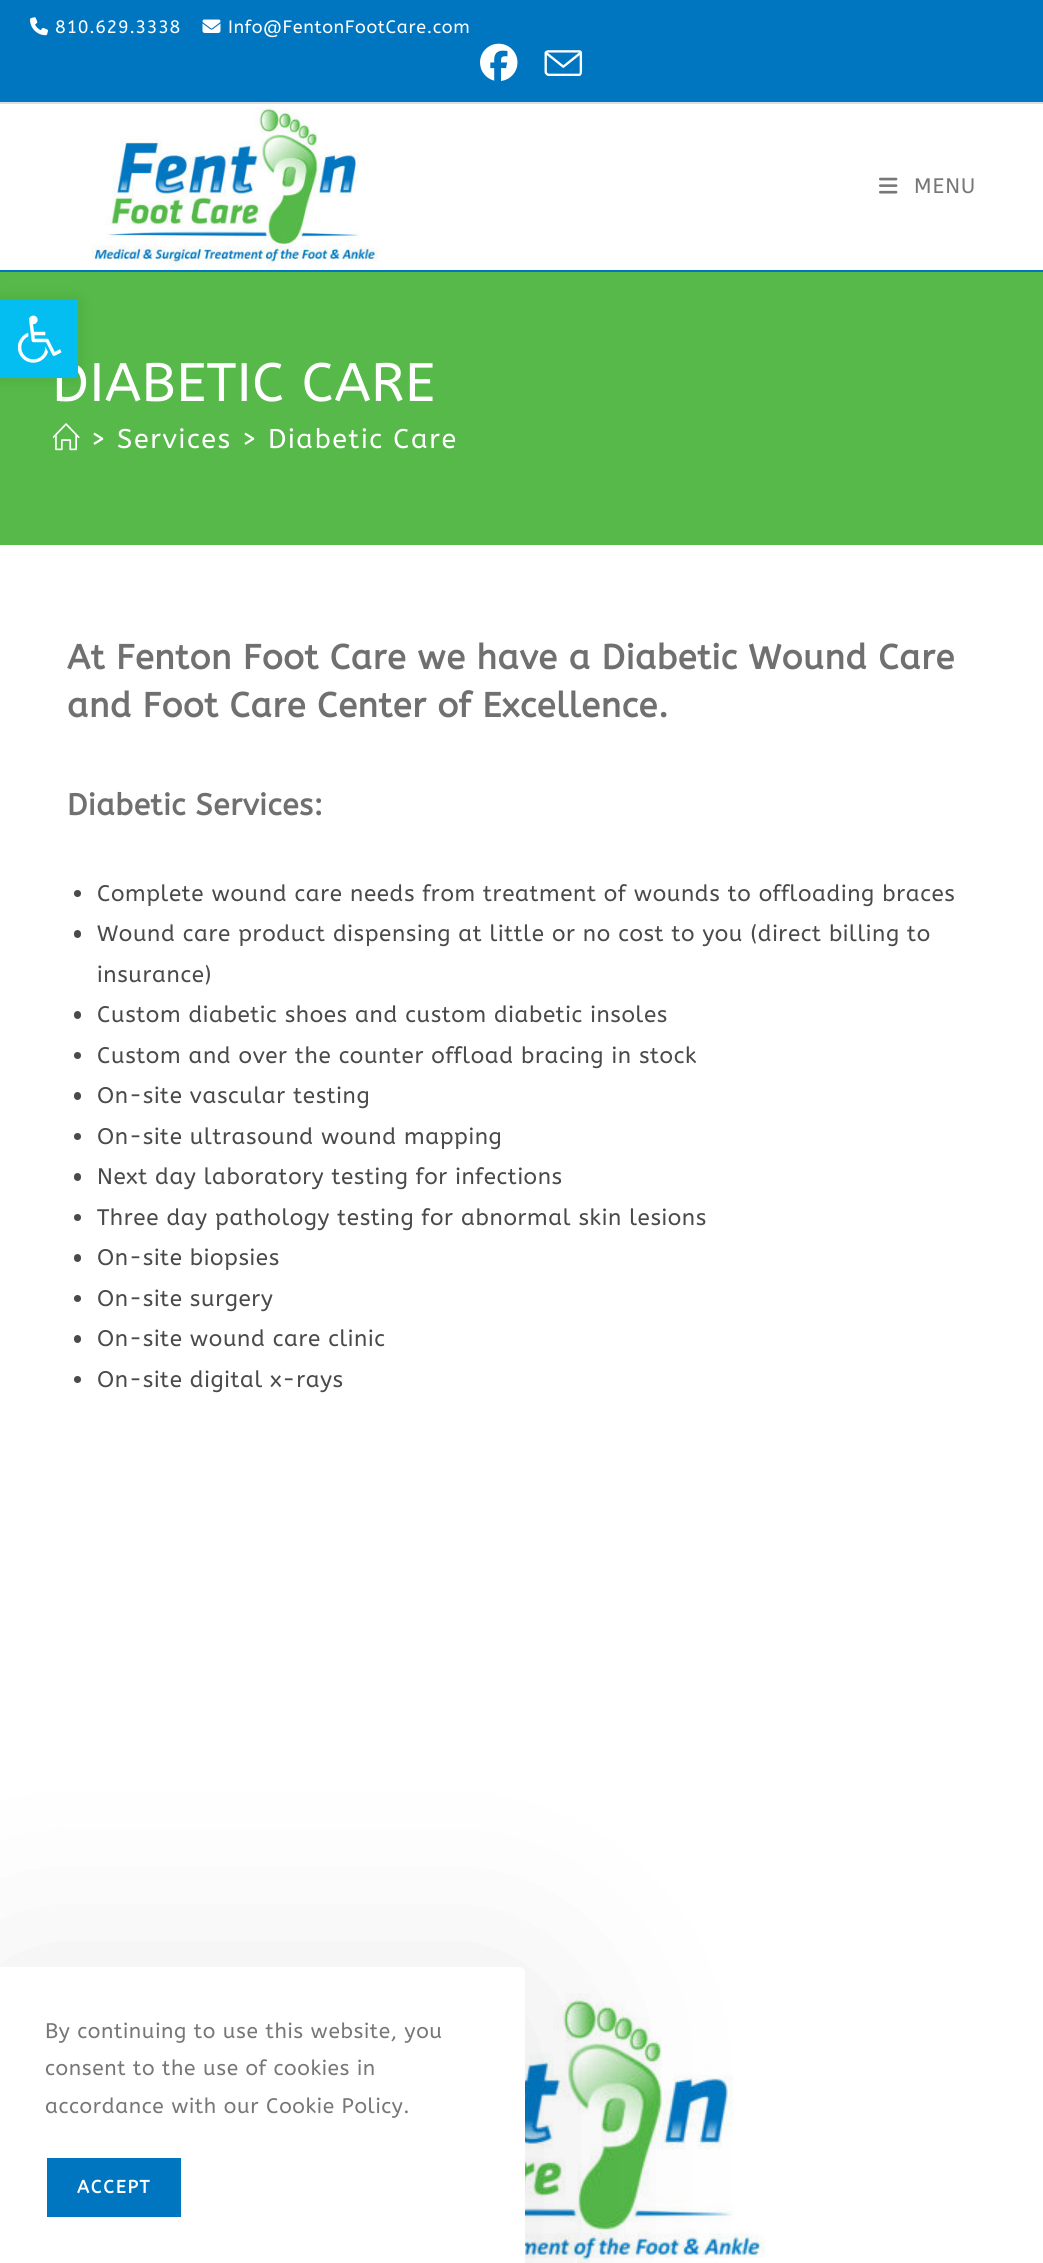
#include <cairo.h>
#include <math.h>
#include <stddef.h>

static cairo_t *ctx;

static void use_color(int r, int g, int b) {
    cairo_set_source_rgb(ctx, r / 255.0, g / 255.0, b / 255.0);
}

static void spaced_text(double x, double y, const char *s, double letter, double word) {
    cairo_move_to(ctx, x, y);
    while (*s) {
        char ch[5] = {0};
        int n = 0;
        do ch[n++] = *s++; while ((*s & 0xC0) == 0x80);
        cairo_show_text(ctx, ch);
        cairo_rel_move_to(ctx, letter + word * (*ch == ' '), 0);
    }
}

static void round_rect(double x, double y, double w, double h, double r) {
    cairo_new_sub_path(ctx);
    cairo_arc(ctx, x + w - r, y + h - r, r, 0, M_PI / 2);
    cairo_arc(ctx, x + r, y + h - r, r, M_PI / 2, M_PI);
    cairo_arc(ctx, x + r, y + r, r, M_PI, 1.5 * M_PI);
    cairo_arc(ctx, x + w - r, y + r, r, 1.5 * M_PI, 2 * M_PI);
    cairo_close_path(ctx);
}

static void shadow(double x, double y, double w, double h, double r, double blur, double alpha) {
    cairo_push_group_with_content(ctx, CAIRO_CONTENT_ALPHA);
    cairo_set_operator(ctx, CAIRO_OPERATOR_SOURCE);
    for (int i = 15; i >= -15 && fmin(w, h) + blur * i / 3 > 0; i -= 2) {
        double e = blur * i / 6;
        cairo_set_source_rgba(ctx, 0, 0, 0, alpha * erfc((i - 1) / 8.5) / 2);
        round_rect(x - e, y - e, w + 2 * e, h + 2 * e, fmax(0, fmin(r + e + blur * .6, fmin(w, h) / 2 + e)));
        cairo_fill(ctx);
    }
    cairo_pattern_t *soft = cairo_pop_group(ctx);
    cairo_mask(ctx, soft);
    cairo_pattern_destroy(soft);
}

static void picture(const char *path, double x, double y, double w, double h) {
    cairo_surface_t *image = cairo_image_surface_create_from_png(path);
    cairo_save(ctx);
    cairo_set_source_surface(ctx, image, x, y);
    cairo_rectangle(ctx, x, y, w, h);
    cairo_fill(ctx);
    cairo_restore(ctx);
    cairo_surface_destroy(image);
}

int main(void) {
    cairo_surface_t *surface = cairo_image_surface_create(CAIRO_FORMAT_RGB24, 1043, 2263);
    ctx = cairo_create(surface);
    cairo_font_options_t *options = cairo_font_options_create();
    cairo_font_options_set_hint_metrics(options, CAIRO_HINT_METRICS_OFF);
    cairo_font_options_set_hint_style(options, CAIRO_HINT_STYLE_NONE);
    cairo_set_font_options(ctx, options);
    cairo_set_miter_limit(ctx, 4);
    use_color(255, 255, 255);
    cairo_paint(ctx);
    use_color(86, 185, 73);
    cairo_rectangle(ctx, 0, 272, 1043, 273);
    cairo_fill(ctx);
    use_color(0, 0, 0);
    shadow(0, 300, 78, 78, 0, 7.5, 0.1);
    cairo_select_font_face(ctx, "ABeeZee", CAIRO_FONT_SLANT_NORMAL, CAIRO_FONT_WEIGHT_NORMAL);
    cairo_set_font_size(ctx, 54);
    use_color(255, 255, 255);
    spaced_text(52, 401, "DIABETIC CARE", 0.6, 0);
    use_color(4, 190, 242);
    cairo_rectangle(ctx, 0, 300, 78, 78);
    cairo_fill(ctx);
    picture("img1.png", 17, 315, 45, 48);
    use_color(0, 117, 192);
    cairo_rectangle(ctx, 0, 0, 1043, 102);
    cairo_fill(ctx);
    use_color(221, 221, 221);
    cairo_rectangle(ctx, 0, 102, 1043, 2);
    cairo_fill(ctx);
    picture("img2.png", 30, 17, 18, 19);
    cairo_set_font_size(ctx, 18);
    use_color(255, 255, 255);
    spaced_text(55, 33, "810.629.3338", 0.6, 0);
    picture("img3.png", 202, 19, 19, 14);
    spaced_text(228, 33, "Info@FentonFootCare.com", 0.6, 0);
    picture("img4.png", 480, 43, 38, 38);
    picture("img5.png", 544, 50, 39, 26);
    use_color(0, 117, 192);
    cairo_rectangle(ctx, 0, 270, 1043, 2);
    cairo_fill(ctx);
    picture("img6.png", 91, 105, 287, 163);
    picture("img7.png", 879, 177, 19, 17);
    cairo_set_font_size(ctx, 21);
    use_color(119, 119, 119);
    spaced_text(914, 193, "MENU", 1, 0);
    picture("img8.png", 53, 423, 27, 28);
    cairo_set_font_size(ctx, 27);
    use_color(255, 255, 255);
    spaced_text(90, 448, ">", 1.6, 0);
    spaced_text(117, 448, "Services", 1.6, 0);
    spaced_text(241, 448, ">", 1.6, 0);
    spaced_text(268, 448, "Diabetic Care", 1.6, 0);
    cairo_select_font_face(ctx, "ABeeZee", CAIRO_FONT_SLANT_NORMAL, CAIRO_FONT_WEIGHT_BOLD);
    cairo_set_font_size(ctx, 34.5);
    use_color(112, 112, 112);
    spaced_text(67, 669, "At Fenton Foot Care we have a Diabetic Wound Care", 0.6, 0);
    spaced_text(67, 717, "and Foot Care Center of Excellence.", 0.6, 0);
    cairo_set_font_size(ctx, 30);
    spaced_text(67, 815, "Diabetic Services:", 0.6, 0);
    use_color(74, 74, 74);
    cairo_new_path(ctx);
    cairo_arc(ctx, 77.5, 893.5, 3.5, 0, 2 * M_PI);
    cairo_fill(ctx);
    cairo_select_font_face(ctx, "ABeeZee", CAIRO_FONT_SLANT_NORMAL, CAIRO_FONT_WEIGHT_NORMAL);
    cairo_set_font_size(ctx, 22.5);
    spaced_text(97, 901, "Complete wound care needs from treatment of wounds to offloading braces", 0.6, 0);
    round_rect(74, 930, 7, 8, 3.5);
    cairo_fill(ctx);
    spaced_text(97, 941, "Wound care product dispensing at little or no cost to you (direct billing to", 0.6, 0);
    spaced_text(97, 982, "insurance)", 0.6, 0);
    round_rect(74, 1011, 7, 8, 3.5);
    cairo_fill(ctx);
    spaced_text(97, 1022, "Custom diabetic shoes and custom diabetic insoles", 0.6, 0);
    cairo_new_path(ctx);
    cairo_arc(ctx, 77.5, 1055.5, 3.5, 0, 2 * M_PI);
    cairo_fill(ctx);
    spaced_text(97, 1063, "Custom and over the counter offload bracing in stock", 0.6, 0);
    round_rect(74, 1092, 7, 8, 3.5);
    cairo_fill(ctx);
    spaced_text(97, 1103, "On-site vascular testing", 0.6, 0);
    cairo_new_path(ctx);
    cairo_arc(ctx, 77.5, 1136.5, 3.5, 0, 2 * M_PI);
    cairo_fill(ctx);
    spaced_text(97, 1144, "On-site ultrasound wound mapping", 0.6, 0);
    round_rect(74, 1173, 7, 8, 3.5);
    cairo_fill(ctx);
    spaced_text(97, 1184, "Next day laboratory testing for infections", 0.6, 0);
    cairo_new_path(ctx);
    cairo_arc(ctx, 77.5, 1217.5, 3.5, 0, 2 * M_PI);
    cairo_fill(ctx);
    spaced_text(97, 1225, "Three day pathology testing for abnormal skin lesions", 0.6, 0);
    round_rect(74, 1254, 7, 8, 3.5);
    cairo_fill(ctx);
    spaced_text(97, 1265, "On-site biopsies", 0.6, 0);
    cairo_new_path(ctx);
    cairo_arc(ctx, 77.5, 1298.5, 3.5, 0, 2 * M_PI);
    cairo_fill(ctx);
    spaced_text(97, 1306, "On-site surgery", 0.6, 0);
    round_rect(74, 1335, 7, 8, 3.5);
    cairo_fill(ctx);
    spaced_text(97, 1346, "On-site wound care clinic", 0.6, 0);
    cairo_new_path(ctx);
    cairo_arc(ctx, 77.5, 1379.5, 3.5, 0, 2 * M_PI);
    cairo_fill(ctx);
    spaced_text(97, 1387, "On-site digital x-rays", 0.6, 0);
    picture("img9.png", 525, 1993, 240, 270);
    use_color(0, 0, 0);
    shadow(0, 1997, 525, 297, 6, 112.5, 0.1);
    use_color(255, 255, 255);
    cairo_new_path(ctx);
    cairo_move_to(ctx, 0, 1967);
    cairo_line_to(ctx, 519, 1967);
    cairo_curve_to(ctx, 522.5, 1967, 525, 1969.5, 525, 1973);
    cairo_line_to(ctx, 525, 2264);
    cairo_line_to(ctx, 0, 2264);
    cairo_close_path(ctx);
    cairo_fill(ctx);
    cairo_set_font_size(ctx, 21);
    use_color(119, 119, 119);
    spaced_text(45, 2038, "By continuing to use this website, you", 0.6, 0);
    spaced_text(45, 2075, "consent to the use of cookies in", 0.6, 0);
    spaced_text(45, 2113, "accordance with our Cookie Policy.", 0.6, 0);
    use_color(0, 117, 192);
    cairo_rectangle(ctx, 47, 2158, 134, 59);
    cairo_fill(ctx);
    cairo_select_font_face(ctx, "ABeeZee", CAIRO_FONT_SLANT_NORMAL, CAIRO_FONT_WEIGHT_BOLD);
    cairo_set_font_size(ctx, 18);
    use_color(255, 255, 255);
    spaced_text(77, 2193, "ACCEPT", 1.75, 0);
    cairo_surface_write_to_png(surface, "result.png");
    cairo_font_options_destroy(options);
    cairo_destroy(ctx);
    cairo_surface_destroy(surface);
    return 0;
}
